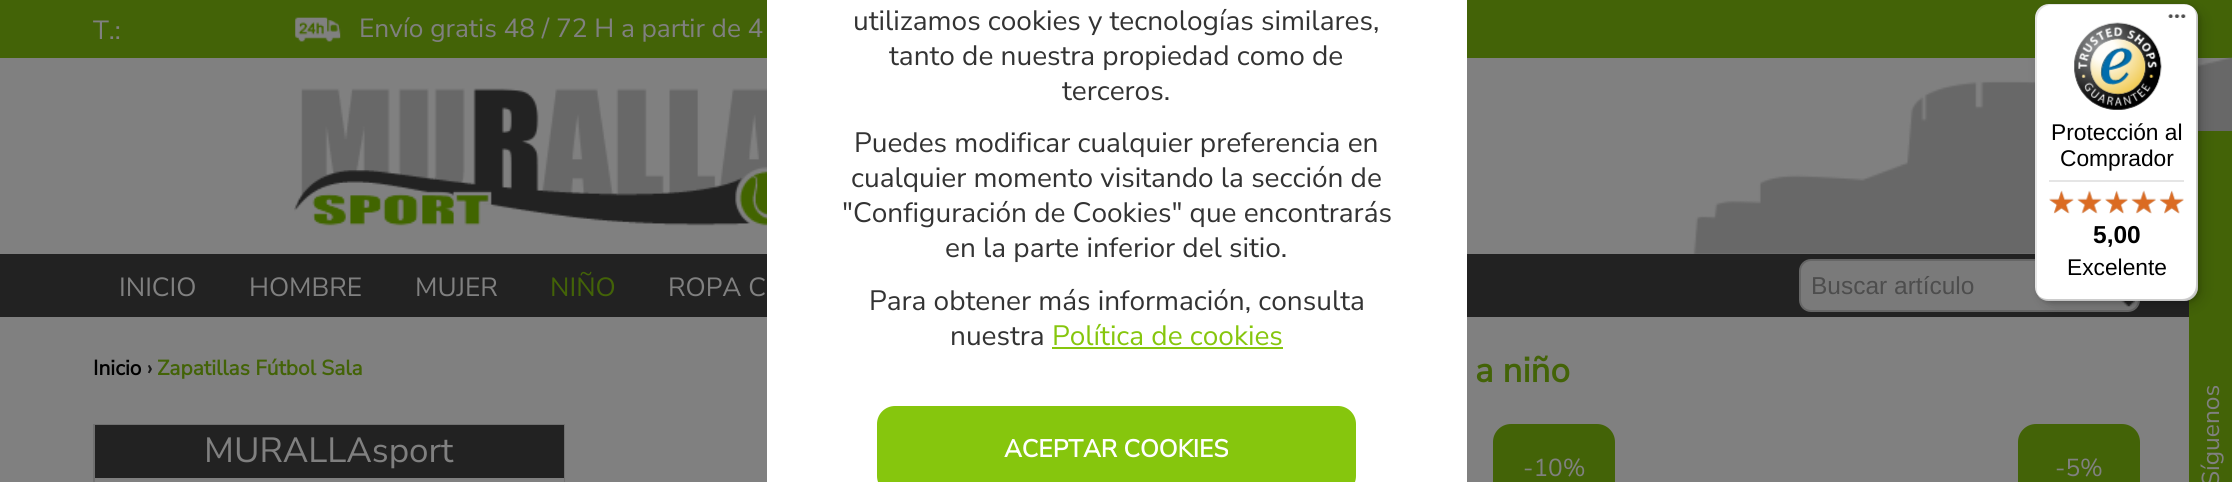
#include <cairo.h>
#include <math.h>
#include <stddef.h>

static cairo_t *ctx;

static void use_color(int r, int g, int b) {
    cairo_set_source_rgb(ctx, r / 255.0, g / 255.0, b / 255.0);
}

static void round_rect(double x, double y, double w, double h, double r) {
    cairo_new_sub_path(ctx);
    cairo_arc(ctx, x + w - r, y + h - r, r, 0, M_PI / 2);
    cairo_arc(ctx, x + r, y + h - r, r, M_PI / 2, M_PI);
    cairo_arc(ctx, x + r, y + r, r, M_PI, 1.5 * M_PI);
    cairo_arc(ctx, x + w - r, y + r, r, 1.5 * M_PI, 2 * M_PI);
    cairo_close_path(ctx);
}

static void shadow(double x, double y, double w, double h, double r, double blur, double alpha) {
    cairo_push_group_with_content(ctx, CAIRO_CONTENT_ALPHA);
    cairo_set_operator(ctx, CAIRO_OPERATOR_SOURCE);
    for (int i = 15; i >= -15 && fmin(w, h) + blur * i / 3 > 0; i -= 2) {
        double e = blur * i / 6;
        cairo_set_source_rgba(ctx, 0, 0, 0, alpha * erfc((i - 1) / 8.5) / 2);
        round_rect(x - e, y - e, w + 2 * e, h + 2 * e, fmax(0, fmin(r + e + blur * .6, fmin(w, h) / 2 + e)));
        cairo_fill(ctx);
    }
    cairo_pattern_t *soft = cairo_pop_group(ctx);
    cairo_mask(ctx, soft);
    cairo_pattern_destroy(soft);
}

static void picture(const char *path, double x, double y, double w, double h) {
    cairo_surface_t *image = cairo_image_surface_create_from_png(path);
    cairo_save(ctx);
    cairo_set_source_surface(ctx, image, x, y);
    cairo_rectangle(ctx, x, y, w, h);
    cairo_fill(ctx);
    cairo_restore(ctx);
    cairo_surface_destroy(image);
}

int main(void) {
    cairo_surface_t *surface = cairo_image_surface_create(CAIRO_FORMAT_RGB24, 2232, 482);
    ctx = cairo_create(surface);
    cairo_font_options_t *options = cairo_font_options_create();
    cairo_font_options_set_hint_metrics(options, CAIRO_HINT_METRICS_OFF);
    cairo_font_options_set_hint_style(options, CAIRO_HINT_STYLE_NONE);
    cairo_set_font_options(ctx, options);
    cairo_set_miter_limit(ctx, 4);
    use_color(128, 128, 128);
    cairo_paint(ctx);
    use_color(67, 99, 7);
    cairo_rectangle(ctx, 0, 0, 2232, 58);
    cairo_fill(ctx);
    use_color(34, 34, 34);
    cairo_rectangle(ctx, 0, 254, 2189, 63);
    cairo_fill(ctx);
    use_color(255, 255, 255);
    cairo_rectangle(ctx, 767, 0, 700, 482);
    cairo_fill(ctx);
    cairo_select_font_face(ctx, "Nunito Sans ExtraLight", CAIRO_FONT_SLANT_NORMAL, CAIRO_FONT_WEIGHT_NORMAL);
    cairo_set_font_size(ctx, 28);
    use_color(51, 51, 51);
    cairo_move_to(ctx, 853, 30);
    cairo_show_text(ctx, "utilizamos cookies y tecnologías similares,");
    cairo_move_to(ctx, 889, 65);
    cairo_show_text(ctx, "tanto de nuestra propiedad como de");
    cairo_move_to(ctx, 1062, 100);
    cairo_show_text(ctx, "terceros.");
    cairo_move_to(ctx, 854, 152);
    cairo_show_text(ctx, "Puedes modificar cualquier preferencia en");
    cairo_move_to(ctx, 851, 187);
    cairo_show_text(ctx, "cualquier momento visitando la sección de");
    cairo_move_to(ctx, 842, 222);
    cairo_show_text(ctx, "\"Configuración de Cookies\" que encontrarás");
    cairo_move_to(ctx, 945, 257);
    cairo_show_text(ctx, "en la parte inferior del sitio.");
    cairo_move_to(ctx, 869, 310);
    cairo_show_text(ctx, "Para obtener más información, consulta");
    cairo_move_to(ctx, 950, 345);
    cairo_show_text(ctx, "nuestra");
    use_color(134, 198, 13);
    cairo_move_to(ctx, 1052, 345);
    cairo_show_text(ctx, "Política de cookies");
    cairo_rectangle(ctx, 1052, 347, 231, 2);
    cairo_fill(ctx);
    round_rect(877, 406, 479, 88, 18);
    cairo_fill(ctx);
    cairo_select_font_face(ctx, "Nunito Sans", CAIRO_FONT_SLANT_NORMAL, CAIRO_FONT_WEIGHT_BOLD);
    cairo_set_font_size(ctx, 24.5);
    use_color(255, 255, 255);
    cairo_move_to(ctx, 1004, 457);
    cairo_show_text(ctx, "ACEPTAR COOKIES");
    cairo_select_font_face(ctx, "Nunito Sans ExtraLight", CAIRO_FONT_SLANT_NORMAL, CAIRO_FONT_WEIGHT_NORMAL);
    cairo_set_font_size(ctx, 26.25);
    use_color(128, 128, 128);
    cairo_move_to(ctx, 93, 39);
    cairo_show_text(ctx, "T.:");
    picture("img1.png", 295, 17, 46, 25);
    cairo_move_to(ctx, 359, 37);
    cairo_show_text(ctx, "Envío gratis 48 / 72 H a partir de 4");
    picture("img2.png", 1693, 57, 539, 197);
    use_color(67, 99, 7);
    cairo_rectangle(ctx, 2198, 131, 34, 121);
    cairo_fill(ctx);
    cairo_rectangle(ctx, 2189, 252, 43, 230);
    cairo_fill(ctx);
    cairo_set_font_size(ctx, 24.5);
    use_color(128, 128, 128);
    cairo_save(ctx);
    cairo_translate(ctx, 2219, 486);
    cairo_rotate(ctx, -90 * M_PI / 180);
    cairo_move_to(ctx, 0, 0);
    cairo_show_text(ctx, "Síguenos");
    cairo_restore(ctx);
    picture("img3.png", 294, 88, 473, 138);
    cairo_set_font_size(ctx, 26.25);
    cairo_move_to(ctx, 119, 296);
    cairo_show_text(ctx, "INICIO");
    cairo_move_to(ctx, 249, 296);
    cairo_show_text(ctx, "HOMBRE");
    cairo_move_to(ctx, 415, 296);
    cairo_show_text(ctx, "MUJER");
    use_color(67, 99, 7);
    cairo_move_to(ctx, 550, 296);
    cairo_show_text(ctx, "NIÑO");
    use_color(128, 128, 128);
    cairo_move_to(ctx, 668, 296);
    cairo_show_text(ctx, "ROPA C");
    use_color(122, 122, 122);
    round_rect(1800, 260, 339, 51, 11);
    cairo_fill_preserve(ctx);
    use_color(102, 102, 102);
    cairo_stroke(ctx);
    cairo_select_font_face(ctx, "Liberation Sans", CAIRO_FONT_SLANT_NORMAL, CAIRO_FONT_WEIGHT_NORMAL);
    cairo_set_font_size(ctx, 24.5);
    use_color(77, 77, 77);
    cairo_move_to(ctx, 1811, 294);
    cairo_show_text(ctx, "Buscar artículo");
    picture("img4.png", 2121, 301, 14, 6);
    cairo_select_font_face(ctx, "Nunito Sans", CAIRO_FONT_SLANT_NORMAL, CAIRO_FONT_WEIGHT_BOLD);
    cairo_set_font_size(ctx, 21);
    use_color(0, 0, 0);
    cairo_move_to(ctx, 93, 375);
    cairo_show_text(ctx, "Inicio");
    use_color(26, 26, 26);
    cairo_move_to(ctx, 147, 375);
    cairo_show_text(ctx, "›");
    use_color(67, 99, 7);
    cairo_move_to(ctx, 157, 375);
    cairo_show_text(ctx, "Zapatillas Fútbol Sala");
    cairo_set_font_size(ctx, 35);
    cairo_move_to(ctx, 1475, 382);
    cairo_show_text(ctx, "a niño");
    cairo_rectangle(ctx, 94, 425, 470, 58);
    use_color(112, 112, 112);
    cairo_stroke(ctx);
    use_color(34, 34, 34);
    cairo_rectangle(ctx, 95, 425, 469, 53);
    cairo_fill(ctx);
    cairo_select_font_face(ctx, "Nunito Sans ExtraLight", CAIRO_FONT_SLANT_NORMAL, CAIRO_FONT_WEIGHT_NORMAL);
    use_color(128, 128, 128);
    cairo_move_to(ctx, 204, 462);
    cairo_show_text(ctx, "MURALLAsport");
    cairo_rectangle(ctx, 563, 478, 1, 4);
    cairo_fill(ctx);
    use_color(67, 99, 7);
    round_rect(1493, 424, 122, 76, 18);
    cairo_fill(ctx);
    cairo_set_font_size(ctx, 24.5);
    use_color(128, 128, 128);
    cairo_move_to(ctx, 1523, 476);
    cairo_show_text(ctx, "-10%");
    use_color(67, 99, 7);
    round_rect(2018, 424, 122, 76, 18);
    cairo_fill(ctx);
    use_color(128, 128, 128);
    cairo_move_to(ctx, 2055, 476);
    cairo_show_text(ctx, "-5%");
    use_color(0, 0, 0);
    shadow(2041, 9, 162, 297, 14, 7, 0.15);
    shadow(2037, 5, 163, 298, 14, 2, 0.15);
    use_color(255, 255, 255);
    round_rect(2035, 4, 163, 297, 14);
    cairo_fill(ctx);
    cairo_set_source_rgba(ctx, 0, 0, 0, 0.1);
    cairo_new_path(ctx);
    cairo_move_to(ctx, 2051, 5);
    cairo_line_to(ctx, 2186, 5);
    cairo_curve_to(ctx, 2188, 5, 2191, 6, 2193, 7);
    cairo_curve_to(ctx, 2190, 5, 2187, 4, 2184, 4);
    cairo_line_to(ctx, 2049, 4);
    cairo_curve_to(ctx, 2041, 4, 2035, 10, 2035, 18);
    cairo_line_to(ctx, 2035, 287);
    cairo_curve_to(ctx, 2035, 292, 2037, 296, 2041, 298);
    cairo_curve_to(ctx, 2038, 296, 2037, 292, 2037, 289);
    cairo_line_to(ctx, 2037, 19);
    cairo_curve_to(ctx, 2037, 12, 2043, 5, 2051, 5);
    cairo_close_path(ctx);
    cairo_fill(ctx);
    cairo_set_source_rgba(ctx, 0, 0, 0, 0.2);
    cairo_new_path(ctx);
    cairo_move_to(ctx, 2036, 293);
    cairo_curve_to(ctx, 2039, 298, 2043, 301, 2049, 301);
    cairo_line_to(ctx, 2184, 301);
    cairo_curve_to(ctx, 2192, 301, 2198, 295, 2198, 287);
    cairo_line_to(ctx, 2198, 18);
    cairo_curve_to(ctx, 2198, 14, 2196, 10, 2193, 8);
    cairo_curve_to(ctx, 2195, 10, 2196, 13, 2196, 16);
    cairo_line_to(ctx, 2196, 285);
    cairo_curve_to(ctx, 2196, 293, 2190, 299, 2182, 299);
    cairo_line_to(ctx, 2048, 299);
    cairo_curve_to(ctx, 2043, 299, 2039, 297, 2036, 293);
    cairo_close_path(ctx);
    cairo_fill(ctx);
    cairo_set_source_rgba(ctx, 0.196, 0.196, 0.196, 0.2);
    cairo_new_path(ctx);
    cairo_move_to(ctx, 2040, 297);
    cairo_curve_to(ctx, 2042, 300, 2045, 301, 2049, 301);
    cairo_line_to(ctx, 2184, 301);
    cairo_curve_to(ctx, 2192, 301, 2198, 295, 2198, 287);
    cairo_line_to(ctx, 2198, 18);
    cairo_curve_to(ctx, 2198, 15, 2197, 12, 2196, 10);
    cairo_curve_to(ctx, 2197, 12, 2197, 14, 2197, 16);
    cairo_line_to(ctx, 2197, 286);
    cairo_curve_to(ctx, 2197, 294, 2191, 300, 2183, 300);
    cairo_line_to(ctx, 2048, 300);
    cairo_curve_to(ctx, 2045, 300, 2042, 299, 2040, 297);
    cairo_close_path(ctx);
    cairo_fill(ctx);
    cairo_set_source_rgba(ctx, 1, 1, 1, 0.3);
    cairo_new_path(ctx);
    cairo_move_to(ctx, 2038, 296);
    cairo_curve_to(ctx, 2040, 299, 2044, 301, 2049, 301);
    cairo_line_to(ctx, 2184, 301);
    cairo_curve_to(ctx, 2192, 301, 2198, 295, 2198, 287);
    cairo_line_to(ctx, 2198, 18);
    cairo_curve_to(ctx, 2198, 14, 2197, 11, 2194, 9);
    cairo_curve_to(ctx, 2196, 11, 2197, 14, 2197, 17);
    cairo_line_to(ctx, 2197, 286);
    cairo_curve_to(ctx, 2197, 294, 2191, 300, 2183, 300);
    cairo_line_to(ctx, 2048, 300);
    cairo_curve_to(ctx, 2044, 300, 2041, 298, 2038, 296);
    cairo_close_path(ctx);
    cairo_fill(ctx);
    picture("img5.png", 2168, 14, 18, 4);
    picture("img6.png", 2074, 22, 88, 88);
    cairo_select_font_face(ctx, "Liberation Sans", CAIRO_FONT_SLANT_NORMAL, CAIRO_FONT_WEIGHT_NORMAL);
    cairo_set_font_size(ctx, 22.75);
    use_color(0, 0, 0);
    cairo_move_to(ctx, 2051, 140);
    cairo_show_text(ctx, "Protección al");
    cairo_move_to(ctx, 2060, 166);
    cairo_show_text(ctx, "Comprador");
    use_color(229, 229, 229);
    cairo_rectangle(ctx, 2049, 180, 135, 2);
    cairo_fill(ctx);
    picture("img12.png", 2049, 191, 25, 22);
    picture("img7.png", 2049, 190, 25, 24);
    picture("img13.png", 2078, 191, 23, 22);
    picture("img8.png", 2077, 190, 25, 24);
    picture("img14.png", 2105, 191, 23, 22);
    picture("img9.png", 2105, 190, 23, 24);
    picture("img15.png", 2132, 191, 24, 22);
    picture("img10.png", 2131, 190, 25, 24);
    picture("img16.png", 2160, 191, 24, 23);
    picture("img11.png", 2159, 190, 25, 24);
    cairo_select_font_face(ctx, "Liberation Sans", CAIRO_FONT_SLANT_NORMAL, CAIRO_FONT_WEIGHT_BOLD);
    cairo_set_font_size(ctx, 24.5);
    use_color(0, 0, 0);
    cairo_move_to(ctx, 2093, 243);
    cairo_show_text(ctx, "5,00");
    cairo_select_font_face(ctx, "Liberation Sans", CAIRO_FONT_SLANT_NORMAL, CAIRO_FONT_WEIGHT_NORMAL);
    cairo_set_font_size(ctx, 22.75);
    cairo_move_to(ctx, 2067, 275);
    cairo_show_text(ctx, "Excelente");
    cairo_surface_write_to_png(surface, "result.png");
    cairo_font_options_destroy(options);
    cairo_destroy(ctx);
    cairo_surface_destroy(surface);
    return 0;
}
